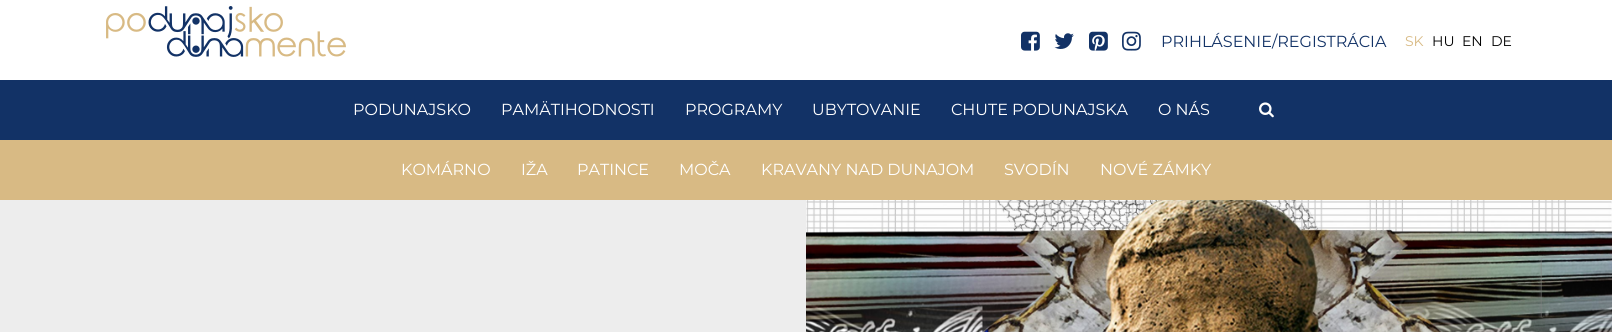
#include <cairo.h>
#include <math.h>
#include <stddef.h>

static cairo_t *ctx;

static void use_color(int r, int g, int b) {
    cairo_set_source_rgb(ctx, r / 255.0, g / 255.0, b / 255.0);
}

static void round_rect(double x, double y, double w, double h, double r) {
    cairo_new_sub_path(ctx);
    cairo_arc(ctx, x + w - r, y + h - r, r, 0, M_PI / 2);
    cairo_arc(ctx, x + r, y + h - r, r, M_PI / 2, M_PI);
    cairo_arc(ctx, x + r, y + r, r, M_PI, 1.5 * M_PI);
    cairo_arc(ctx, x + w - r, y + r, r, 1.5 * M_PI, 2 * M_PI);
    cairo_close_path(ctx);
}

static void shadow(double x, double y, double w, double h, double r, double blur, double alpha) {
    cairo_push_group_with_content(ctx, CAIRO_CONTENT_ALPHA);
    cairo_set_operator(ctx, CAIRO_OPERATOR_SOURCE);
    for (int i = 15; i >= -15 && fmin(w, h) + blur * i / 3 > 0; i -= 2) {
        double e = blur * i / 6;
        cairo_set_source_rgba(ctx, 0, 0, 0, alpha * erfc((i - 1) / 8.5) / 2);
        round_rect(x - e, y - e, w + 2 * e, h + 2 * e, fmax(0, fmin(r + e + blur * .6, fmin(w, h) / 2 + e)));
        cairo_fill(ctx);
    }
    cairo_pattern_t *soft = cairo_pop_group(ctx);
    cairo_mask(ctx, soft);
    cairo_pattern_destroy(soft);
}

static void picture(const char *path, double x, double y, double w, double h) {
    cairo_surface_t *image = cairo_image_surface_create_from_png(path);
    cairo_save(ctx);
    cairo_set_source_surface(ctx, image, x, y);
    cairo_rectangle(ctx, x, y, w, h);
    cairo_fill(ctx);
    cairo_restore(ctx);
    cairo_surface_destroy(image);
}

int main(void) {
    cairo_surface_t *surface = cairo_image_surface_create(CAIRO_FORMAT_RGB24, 1612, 332);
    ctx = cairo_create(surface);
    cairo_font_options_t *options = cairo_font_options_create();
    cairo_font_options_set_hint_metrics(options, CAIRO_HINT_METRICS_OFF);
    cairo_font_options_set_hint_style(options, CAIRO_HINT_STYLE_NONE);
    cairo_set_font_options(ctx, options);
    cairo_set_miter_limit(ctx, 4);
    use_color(237, 237, 237);
    cairo_paint(ctx);
    use_color(255, 255, 255);
    cairo_rectangle(ctx, 0, 0, 1612, 80);
    cairo_fill(ctx);
    picture("img1.png", 106, 6, 240, 51);
    picture("img2.png", 1021, 31, 19, 20);
    picture("img3.png", 1054, 33, 20, 16);
    picture("img4.png", 1089, 31, 19, 20);
    picture("img5.png", 1122, 31, 19, 20);
    cairo_select_font_face(ctx, "Montserrat", CAIRO_FONT_SLANT_NORMAL, CAIRO_FONT_WEIGHT_NORMAL);
    cairo_set_font_size(ctx, 16);
    use_color(18, 50, 102);
    cairo_move_to(ctx, 1161, 47);
    cairo_show_text(ctx, "PRIHLÁSENIE/REGISTRÁCIA");
    cairo_set_font_size(ctx, 14);
    use_color(216, 186, 132);
    cairo_move_to(ctx, 1405, 46);
    cairo_show_text(ctx, "SK");
    use_color(0, 0, 0);
    cairo_move_to(ctx, 1432, 46);
    cairo_show_text(ctx, "HU");
    cairo_move_to(ctx, 1462, 46);
    cairo_show_text(ctx, "EN");
    cairo_move_to(ctx, 1491, 46);
    cairo_show_text(ctx, "DE");
    use_color(18, 50, 102);
    cairo_rectangle(ctx, 0, 80, 1612, 60);
    cairo_fill(ctx);
    cairo_set_font_size(ctx, 16);
    use_color(255, 255, 255);
    cairo_move_to(ctx, 353, 115);
    cairo_show_text(ctx, "PODUNAJSKO");
    cairo_move_to(ctx, 501, 115);
    cairo_show_text(ctx, "PAMÄTIHODNOSTI");
    cairo_move_to(ctx, 685, 115);
    cairo_show_text(ctx, "PROGRAMY");
    cairo_move_to(ctx, 812, 115);
    cairo_show_text(ctx, "UBYTOVANIE");
    cairo_move_to(ctx, 951, 115);
    cairo_show_text(ctx, "CHUTE PODUNAJSKA");
    cairo_move_to(ctx, 1158, 115);
    cairo_show_text(ctx, "O NÁS");
    picture("img6.png", 1259, 102, 15, 16);
    use_color(216, 186, 132);
    cairo_rectangle(ctx, 0, 140, 1612, 60);
    cairo_fill(ctx);
    use_color(255, 255, 255);
    cairo_move_to(ctx, 401, 175);
    cairo_show_text(ctx, "KOMÁRNO");
    cairo_move_to(ctx, 521, 175);
    cairo_show_text(ctx, "IŽA");
    cairo_move_to(ctx, 577, 175);
    cairo_show_text(ctx, "PATINCE");
    cairo_move_to(ctx, 679, 175);
    cairo_show_text(ctx, "MOČA");
    cairo_move_to(ctx, 761, 175);
    cairo_show_text(ctx, "KRAVANY NAD DUNAJOM");
    cairo_move_to(ctx, 1004, 175);
    cairo_show_text(ctx, "SVODÍN");
    cairo_move_to(ctx, 1100, 175);
    cairo_show_text(ctx, "NOVÉ ZÁMKY");
    picture("img7.png", 806, 200, 806, 132);
    cairo_save(ctx);
    cairo_set_fill_rule(ctx, CAIRO_FILL_RULE_EVEN_ODD);
    cairo_new_path(ctx);
    cairo_move_to(ctx, 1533, 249);
    cairo_line_to(ctx, 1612, 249);
    cairo_line_to(ctx, 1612, 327);
    cairo_line_to(ctx, 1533, 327);
    cairo_close_path(ctx);
    cairo_move_to(ctx, 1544, 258);
    cairo_line_to(ctx, 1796, 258);
    cairo_curve_to(ctx, 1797, 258, 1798, 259, 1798, 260);
    cairo_line_to(ctx, 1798, 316);
    cairo_curve_to(ctx, 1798, 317, 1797, 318, 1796, 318);
    cairo_line_to(ctx, 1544, 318);
    cairo_curve_to(ctx, 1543, 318, 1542, 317, 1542, 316);
    cairo_line_to(ctx, 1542, 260);
    cairo_curve_to(ctx, 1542, 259, 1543, 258, 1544, 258);
    cairo_close_path(ctx);
    cairo_clip(ctx);
    use_color(128, 128, 128);
    shadow(1542, 258, 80, 60, 2, 2.5, 1);
    cairo_restore(ctx);
    cairo_surface_write_to_png(surface, "result.png");
    cairo_font_options_destroy(options);
    cairo_destroy(ctx);
    cairo_surface_destroy(surface);
    return 0;
}
